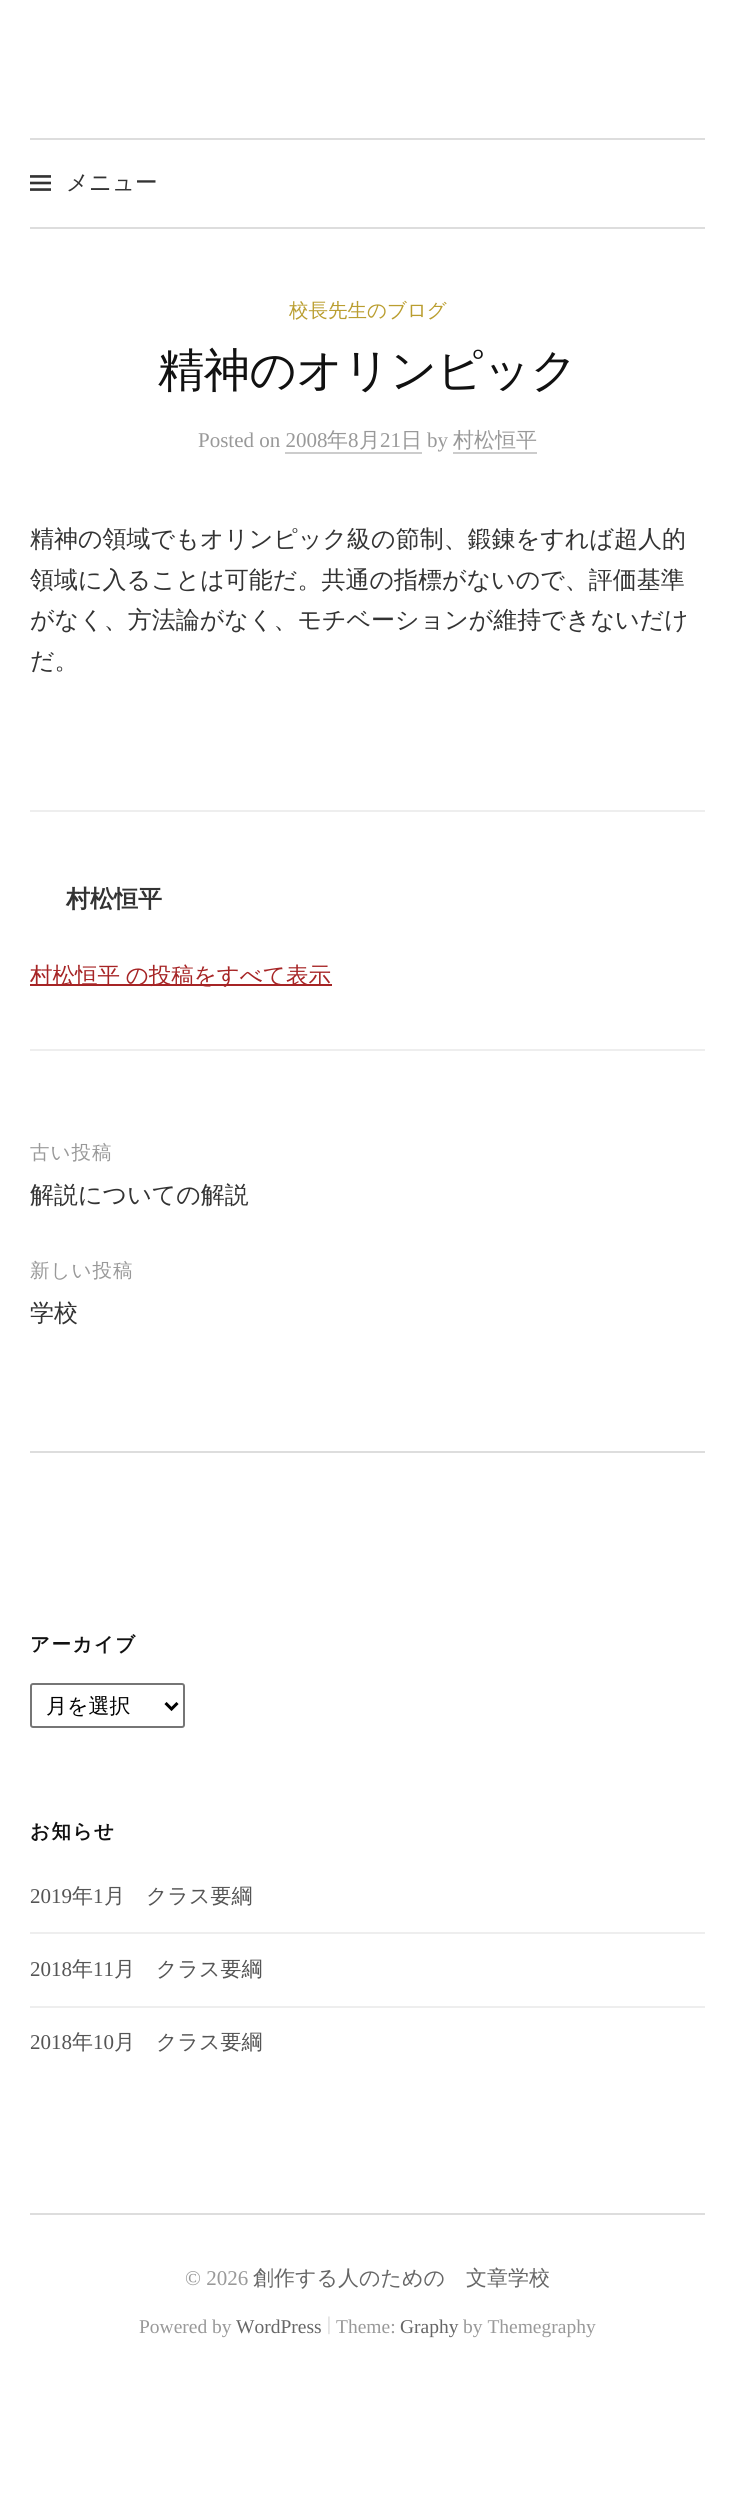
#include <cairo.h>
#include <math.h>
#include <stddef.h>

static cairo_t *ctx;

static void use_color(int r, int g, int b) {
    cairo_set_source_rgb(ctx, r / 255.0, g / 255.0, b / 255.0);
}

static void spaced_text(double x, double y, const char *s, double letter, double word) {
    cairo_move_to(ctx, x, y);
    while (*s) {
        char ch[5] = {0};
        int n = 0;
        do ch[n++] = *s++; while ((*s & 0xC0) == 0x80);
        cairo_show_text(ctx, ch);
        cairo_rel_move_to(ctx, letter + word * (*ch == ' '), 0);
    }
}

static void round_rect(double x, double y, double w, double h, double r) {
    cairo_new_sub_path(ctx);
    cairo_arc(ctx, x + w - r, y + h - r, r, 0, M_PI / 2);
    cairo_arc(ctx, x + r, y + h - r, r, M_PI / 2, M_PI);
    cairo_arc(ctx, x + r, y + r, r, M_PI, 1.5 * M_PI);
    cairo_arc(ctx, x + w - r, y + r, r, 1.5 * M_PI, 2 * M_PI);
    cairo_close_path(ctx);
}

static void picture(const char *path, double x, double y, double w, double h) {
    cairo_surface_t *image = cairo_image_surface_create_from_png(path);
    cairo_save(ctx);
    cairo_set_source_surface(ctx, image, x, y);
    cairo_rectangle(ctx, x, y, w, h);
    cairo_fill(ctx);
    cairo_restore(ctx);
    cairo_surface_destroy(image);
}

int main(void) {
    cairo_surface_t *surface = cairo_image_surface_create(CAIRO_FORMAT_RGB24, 735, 2510);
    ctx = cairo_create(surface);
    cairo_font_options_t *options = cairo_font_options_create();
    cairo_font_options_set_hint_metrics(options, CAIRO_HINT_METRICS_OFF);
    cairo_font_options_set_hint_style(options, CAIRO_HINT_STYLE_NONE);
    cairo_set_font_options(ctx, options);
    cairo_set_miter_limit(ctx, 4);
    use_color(255, 255, 255);
    cairo_paint(ctx);
    use_color(221, 221, 221);
    cairo_rectangle(ctx, 30, 138, 675, 2);
    cairo_fill(ctx);
    cairo_rectangle(ctx, 30, 227, 675, 2);
    cairo_fill(ctx);
    picture("img1.png", 30, 175, 21, 16);
    cairo_select_font_face(ctx, "WenQuanYi Zen Hei Medium", CAIRO_FONT_SLANT_NORMAL, CAIRO_FONT_WEIGHT_NORMAL);
    cairo_set_font_size(ctx, 22.5);
    use_color(51, 51, 51);
    cairo_move_to(ctx, 66, 190);
    cairo_show_text(ctx, "メニュー");
    cairo_set_font_size(ctx, 19.5);
    use_color(186, 158, 48);
    cairo_move_to(ctx, 289, 317);
    cairo_show_text(ctx, "校長先生のブログ");
    cairo_set_font_size(ctx, 46.25);
    use_color(17, 17, 17);
    spaced_text(158, 386, "精神のオリンピック", -0.5, 0);
    cairo_select_font_face(ctx, "Liberation Serif", CAIRO_FONT_SLANT_NORMAL, CAIRO_FONT_WEIGHT_NORMAL);
    cairo_set_font_size(ctx, 21);
    use_color(153, 153, 153);
    cairo_move_to(ctx, 198, 447);
    cairo_show_text(ctx, "Posted on 2008");
    cairo_select_font_face(ctx, "WenQuanYi Zen Hei Medium", CAIRO_FONT_SLANT_NORMAL, CAIRO_FONT_WEIGHT_NORMAL);
    cairo_move_to(ctx, 327, 447);
    cairo_show_text(ctx, "年");
    cairo_select_font_face(ctx, "Liberation Serif", CAIRO_FONT_SLANT_NORMAL, CAIRO_FONT_WEIGHT_NORMAL);
    cairo_move_to(ctx, 348, 447);
    cairo_show_text(ctx, "8");
    use_color(204, 204, 204);
    cairo_rectangle(ctx, 285, 452, 137, 2);
    cairo_fill(ctx);
    cairo_select_font_face(ctx, "WenQuanYi Zen Hei Medium", CAIRO_FONT_SLANT_NORMAL, CAIRO_FONT_WEIGHT_NORMAL);
    use_color(153, 153, 153);
    cairo_move_to(ctx, 359, 447);
    cairo_show_text(ctx, "月");
    cairo_select_font_face(ctx, "Liberation Serif", CAIRO_FONT_SLANT_NORMAL, CAIRO_FONT_WEIGHT_NORMAL);
    cairo_move_to(ctx, 380, 447);
    cairo_show_text(ctx, "21");
    cairo_select_font_face(ctx, "WenQuanYi Zen Hei Medium", CAIRO_FONT_SLANT_NORMAL, CAIRO_FONT_WEIGHT_NORMAL);
    cairo_move_to(ctx, 401, 447);
    cairo_show_text(ctx, "日");
    cairo_select_font_face(ctx, "Liberation Serif", CAIRO_FONT_SLANT_NORMAL, CAIRO_FONT_WEIGHT_NORMAL);
    cairo_move_to(ctx, 427, 447);
    cairo_show_text(ctx, "by");
    use_color(204, 204, 204);
    cairo_rectangle(ctx, 453, 452, 84, 2);
    cairo_fill(ctx);
    cairo_select_font_face(ctx, "WenQuanYi Zen Hei Medium", CAIRO_FONT_SLANT_NORMAL, CAIRO_FONT_WEIGHT_NORMAL);
    use_color(153, 153, 153);
    cairo_move_to(ctx, 453, 447);
    cairo_show_text(ctx, "村松恒平");
    cairo_set_font_size(ctx, 24);
    use_color(51, 51, 51);
    cairo_move_to(ctx, 30, 547);
    cairo_show_text(ctx, "精神の領域でもオリンピック級の節制、鍛錬をすれば超人的");
    cairo_move_to(ctx, 30, 588);
    cairo_show_text(ctx, "領域に入ることは可能だ。共通の指標がないので、評価基準");
    cairo_move_to(ctx, 30, 628);
    cairo_show_text(ctx, "がなく、方法論がなく、モチベーションが維持できないだけ");
    cairo_move_to(ctx, 30, 669);
    cairo_show_text(ctx, "だ。");
    use_color(238, 238, 238);
    cairo_rectangle(ctx, 30, 810, 675, 2);
    cairo_fill(ctx);
    cairo_rectangle(ctx, 30, 1049, 675, 2);
    cairo_fill(ctx);
    cairo_select_font_face(ctx, "WenQuanYi Zen Hei", CAIRO_FONT_SLANT_NORMAL, CAIRO_FONT_WEIGHT_BOLD);
    use_color(51, 51, 51);
    cairo_move_to(ctx, 66, 907);
    cairo_show_text(ctx, "村松恒平");
    use_color(166, 36, 37);
    cairo_rectangle(ctx, 30, 984, 302, 2);
    cairo_fill(ctx);
    cairo_select_font_face(ctx, "WenQuanYi Zen Hei Medium", CAIRO_FONT_SLANT_NORMAL, CAIRO_FONT_WEIGHT_NORMAL);
    cairo_set_font_size(ctx, 22.5);
    spaced_text(30, 983, "村松恒平 の投稿をすべて表示", 0, -1);
    cairo_set_font_size(ctx, 19.5);
    use_color(153, 153, 153);
    spaced_text(30, 1159, "古い投稿", 1, 0);
    cairo_set_font_size(ctx, 24);
    use_color(51, 51, 51);
    cairo_move_to(ctx, 30, 1203);
    cairo_show_text(ctx, "解説についての解説");
    cairo_set_font_size(ctx, 19.5);
    use_color(153, 153, 153);
    spaced_text(30, 1277, "新しい投稿", 1, 0);
    cairo_set_font_size(ctx, 24);
    use_color(51, 51, 51);
    cairo_move_to(ctx, 30, 1321);
    cairo_show_text(ctx, "学校");
    use_color(221, 221, 221);
    cairo_rectangle(ctx, 30, 1451, 675, 2);
    cairo_fill(ctx);
    cairo_select_font_face(ctx, "WenQuanYi Zen Hei", CAIRO_FONT_SLANT_NORMAL, CAIRO_FONT_WEIGHT_BOLD);
    cairo_set_font_size(ctx, 19.5);
    use_color(17, 17, 17);
    spaced_text(30, 1651, "アーカイブ", 1.5, 0);
    round_rect(31, 1684, 153, 43, 2);
    use_color(118, 118, 118);
    cairo_stroke(ctx);
    cairo_new_path(ctx);
    cairo_move_to(ctx, 165.5, 1703);
    cairo_line_to(ctx, 171.5, 1709);
    cairo_line_to(ctx, 177.5, 1703);
    use_color(0, 0, 0);
    cairo_set_line_width(ctx, 3);
    cairo_stroke(ctx);
    cairo_select_font_face(ctx, "WenQuanYi Zen Hei Medium", CAIRO_FONT_SLANT_NORMAL, CAIRO_FONT_WEIGHT_NORMAL);
    cairo_set_font_size(ctx, 21);
    cairo_move_to(ctx, 46, 1713);
    cairo_show_text(ctx, "月を選択");
    cairo_select_font_face(ctx, "WenQuanYi Zen Hei", CAIRO_FONT_SLANT_NORMAL, CAIRO_FONT_WEIGHT_BOLD);
    cairo_set_font_size(ctx, 19.5);
    use_color(17, 17, 17);
    spaced_text(30, 1838, "お知らせ", 1.5, 0);
    cairo_select_font_face(ctx, "Liberation Serif", CAIRO_FONT_SLANT_NORMAL, CAIRO_FONT_WEIGHT_NORMAL);
    cairo_set_font_size(ctx, 21);
    use_color(85, 85, 85);
    cairo_move_to(ctx, 30, 1903);
    cairo_show_text(ctx, "2019");
    cairo_select_font_face(ctx, "WenQuanYi Zen Hei Medium", CAIRO_FONT_SLANT_NORMAL, CAIRO_FONT_WEIGHT_NORMAL);
    cairo_move_to(ctx, 72, 1903);
    cairo_show_text(ctx, "年");
    cairo_select_font_face(ctx, "Liberation Serif", CAIRO_FONT_SLANT_NORMAL, CAIRO_FONT_WEIGHT_NORMAL);
    cairo_move_to(ctx, 93, 1903);
    cairo_show_text(ctx, "1");
    cairo_select_font_face(ctx, "WenQuanYi Zen Hei Medium", CAIRO_FONT_SLANT_NORMAL, CAIRO_FONT_WEIGHT_NORMAL);
    cairo_move_to(ctx, 104, 1903);
    cairo_show_text(ctx, "月　クラス要綱");
    use_color(238, 238, 238);
    cairo_rectangle(ctx, 30, 1932, 675, 2);
    cairo_fill(ctx);
    cairo_select_font_face(ctx, "Liberation Serif", CAIRO_FONT_SLANT_NORMAL, CAIRO_FONT_WEIGHT_NORMAL);
    use_color(85, 85, 85);
    cairo_move_to(ctx, 30, 1976);
    cairo_show_text(ctx, "2018");
    cairo_select_font_face(ctx, "WenQuanYi Zen Hei Medium", CAIRO_FONT_SLANT_NORMAL, CAIRO_FONT_WEIGHT_NORMAL);
    cairo_move_to(ctx, 72, 1976);
    cairo_show_text(ctx, "年");
    cairo_select_font_face(ctx, "Liberation Serif", CAIRO_FONT_SLANT_NORMAL, CAIRO_FONT_WEIGHT_NORMAL);
    cairo_move_to(ctx, 93, 1976);
    cairo_show_text(ctx, "11");
    cairo_select_font_face(ctx, "WenQuanYi Zen Hei Medium", CAIRO_FONT_SLANT_NORMAL, CAIRO_FONT_WEIGHT_NORMAL);
    cairo_move_to(ctx, 114, 1976);
    cairo_show_text(ctx, "月　クラス要綱");
    use_color(238, 238, 238);
    cairo_rectangle(ctx, 30, 2006, 675, 2);
    cairo_fill(ctx);
    cairo_select_font_face(ctx, "Liberation Serif", CAIRO_FONT_SLANT_NORMAL, CAIRO_FONT_WEIGHT_NORMAL);
    use_color(85, 85, 85);
    cairo_move_to(ctx, 30, 2049);
    cairo_show_text(ctx, "2018");
    cairo_select_font_face(ctx, "WenQuanYi Zen Hei Medium", CAIRO_FONT_SLANT_NORMAL, CAIRO_FONT_WEIGHT_NORMAL);
    cairo_move_to(ctx, 72, 2049);
    cairo_show_text(ctx, "年");
    cairo_select_font_face(ctx, "Liberation Serif", CAIRO_FONT_SLANT_NORMAL, CAIRO_FONT_WEIGHT_NORMAL);
    cairo_move_to(ctx, 93, 2049);
    cairo_show_text(ctx, "10");
    cairo_select_font_face(ctx, "WenQuanYi Zen Hei Medium", CAIRO_FONT_SLANT_NORMAL, CAIRO_FONT_WEIGHT_NORMAL);
    cairo_move_to(ctx, 114, 2049);
    cairo_show_text(ctx, "月　クラス要綱");
    use_color(221, 221, 221);
    cairo_rectangle(ctx, 30, 2213, 675, 2);
    cairo_fill(ctx);
    cairo_select_font_face(ctx, "Liberation Serif", CAIRO_FONT_SLANT_NORMAL, CAIRO_FONT_WEIGHT_NORMAL);
    use_color(153, 153, 153);
    cairo_move_to(ctx, 185, 2285);
    cairo_show_text(ctx, "© 2026");
    cairo_select_font_face(ctx, "WenQuanYi Zen Hei Medium", CAIRO_FONT_SLANT_NORMAL, CAIRO_FONT_WEIGHT_NORMAL);
    use_color(102, 102, 102);
    cairo_move_to(ctx, 253, 2285);
    cairo_show_text(ctx, "創作する人のための　文章学校");
    cairo_select_font_face(ctx, "Liberation Serif", CAIRO_FONT_SLANT_NORMAL, CAIRO_FONT_WEIGHT_NORMAL);
    cairo_set_font_size(ctx, 19.5);
    use_color(153, 153, 153);
    cairo_move_to(ctx, 139, 2333);
    cairo_show_text(ctx, "Powered by");
    use_color(102, 102, 102);
    cairo_move_to(ctx, 236, 2333);
    cairo_show_text(ctx, "WordPress");
    use_color(204, 204, 204);
    cairo_move_to(ctx, 327, 2330);
    cairo_show_text(ctx, "|");
    use_color(153, 153, 153);
    cairo_move_to(ctx, 336, 2333);
    cairo_show_text(ctx, "Theme:");
    use_color(102, 102, 102);
    cairo_move_to(ctx, 400, 2333);
    cairo_show_text(ctx, "Graphy");
    use_color(153, 153, 153);
    cairo_move_to(ctx, 463, 2333);
    cairo_show_text(ctx, "by Themegraphy");
    cairo_surface_write_to_png(surface, "result.png");
    cairo_font_options_destroy(options);
    cairo_destroy(ctx);
    cairo_surface_destroy(surface);
    return 0;
}
